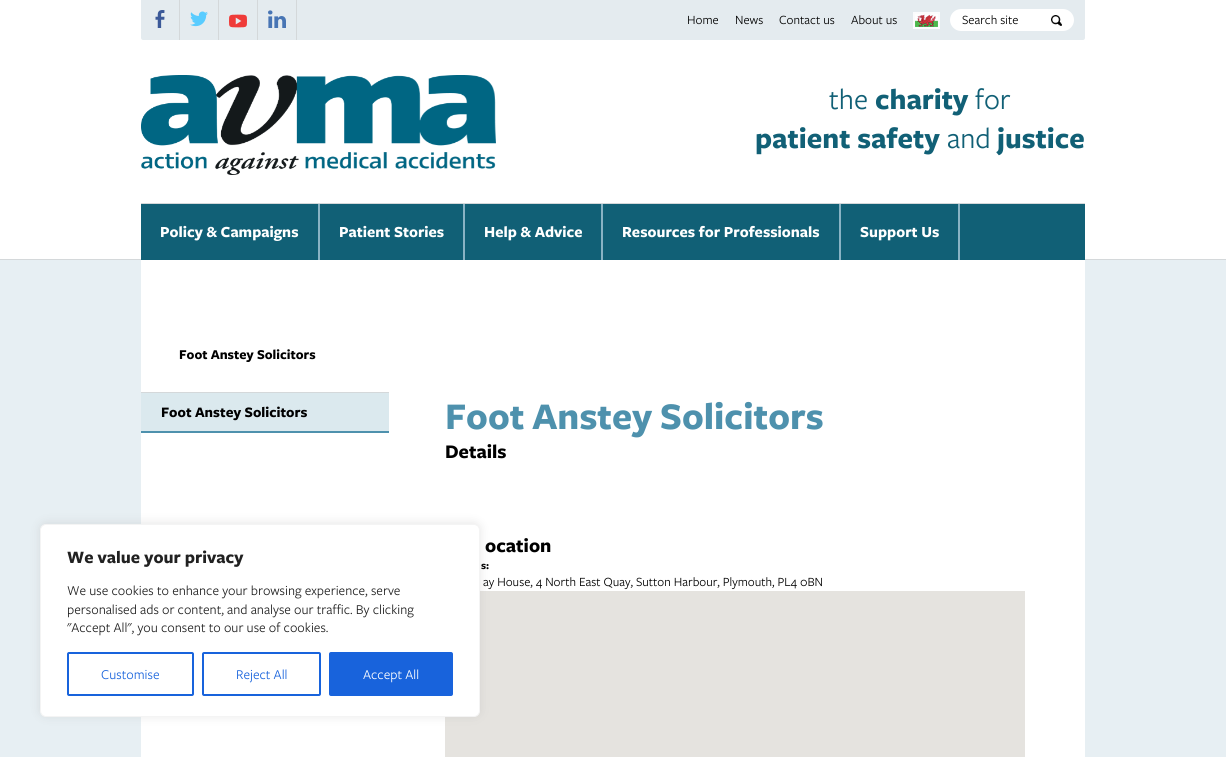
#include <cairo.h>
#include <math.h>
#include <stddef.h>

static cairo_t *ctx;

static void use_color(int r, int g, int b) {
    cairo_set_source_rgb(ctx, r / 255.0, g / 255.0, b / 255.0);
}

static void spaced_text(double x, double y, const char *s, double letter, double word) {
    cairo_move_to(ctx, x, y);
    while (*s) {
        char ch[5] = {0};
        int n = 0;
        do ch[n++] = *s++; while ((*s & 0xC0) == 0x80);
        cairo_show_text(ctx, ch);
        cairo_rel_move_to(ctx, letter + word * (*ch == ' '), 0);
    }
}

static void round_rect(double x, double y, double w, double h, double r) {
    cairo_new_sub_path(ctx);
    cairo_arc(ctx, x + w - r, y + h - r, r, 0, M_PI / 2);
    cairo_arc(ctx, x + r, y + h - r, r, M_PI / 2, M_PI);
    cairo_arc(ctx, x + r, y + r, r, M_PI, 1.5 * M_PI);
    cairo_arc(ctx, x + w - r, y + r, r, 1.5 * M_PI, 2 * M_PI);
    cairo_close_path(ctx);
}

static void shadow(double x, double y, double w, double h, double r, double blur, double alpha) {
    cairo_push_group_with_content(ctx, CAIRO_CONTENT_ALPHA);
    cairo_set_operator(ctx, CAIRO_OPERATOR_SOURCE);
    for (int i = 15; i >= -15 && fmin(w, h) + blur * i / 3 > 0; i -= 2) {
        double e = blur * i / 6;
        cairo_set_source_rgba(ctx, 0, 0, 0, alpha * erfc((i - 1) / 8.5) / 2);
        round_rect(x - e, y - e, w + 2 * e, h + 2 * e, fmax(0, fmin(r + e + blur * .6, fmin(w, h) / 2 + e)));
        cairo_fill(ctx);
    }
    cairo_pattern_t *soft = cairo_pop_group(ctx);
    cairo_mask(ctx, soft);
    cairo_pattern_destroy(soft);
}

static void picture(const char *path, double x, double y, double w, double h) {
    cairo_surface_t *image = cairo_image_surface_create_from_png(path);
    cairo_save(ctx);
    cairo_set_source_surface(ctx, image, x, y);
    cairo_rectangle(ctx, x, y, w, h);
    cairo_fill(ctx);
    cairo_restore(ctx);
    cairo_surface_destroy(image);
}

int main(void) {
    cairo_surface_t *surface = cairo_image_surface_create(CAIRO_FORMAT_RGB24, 1226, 757);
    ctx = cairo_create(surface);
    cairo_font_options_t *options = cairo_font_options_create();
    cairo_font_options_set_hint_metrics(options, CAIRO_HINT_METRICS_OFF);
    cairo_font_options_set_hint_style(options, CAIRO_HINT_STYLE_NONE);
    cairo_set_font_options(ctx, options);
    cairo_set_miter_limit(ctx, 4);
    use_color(255, 255, 255);
    cairo_paint(ctx);
    use_color(228, 235, 239);
    cairo_new_path(ctx);
    cairo_move_to(ctx, 141, 0);
    cairo_line_to(ctx, 1085, 0);
    cairo_line_to(ctx, 1085, 38);
    cairo_curve_to(ctx, 1085, 39, 1084, 40, 1083, 40);
    cairo_line_to(ctx, 143, 40);
    cairo_curve_to(ctx, 142, 40, 141, 39, 141, 38);
    cairo_close_path(ctx);
    cairo_fill(ctx);
    use_color(212, 216, 218);
    cairo_rectangle(ctx, 179, 0, 1, 40);
    cairo_fill(ctx);
    picture("img1.png", 155, 10, 10, 18);
    cairo_rectangle(ctx, 218, 0, 1, 40);
    cairo_fill(ctx);
    picture("img2.png", 190, 11, 18, 16);
    cairo_rectangle(ctx, 257, 0, 1, 40);
    cairo_fill(ctx);
    picture("img3.png", 229, 14, 18, 14);
    cairo_rectangle(ctx, 296, 0, 1, 40);
    cairo_fill(ctx);
    picture("img4.png", 268, 10, 18, 18);
    cairo_select_font_face(ctx, "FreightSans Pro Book", CAIRO_FONT_SLANT_NORMAL, CAIRO_FONT_WEIGHT_NORMAL);
    cairo_set_font_size(ctx, 13);
    use_color(0, 0, 0);
    cairo_move_to(ctx, 687, 24);
    cairo_show_text(ctx, "Home");
    cairo_move_to(ctx, 735, 24);
    cairo_show_text(ctx, "News");
    cairo_move_to(ctx, 779, 24);
    cairo_show_text(ctx, "Contact us");
    cairo_move_to(ctx, 851, 24);
    cairo_show_text(ctx, "About us");
    picture("img5.png", 913, 12, 27, 17);
    use_color(255, 255, 255);
    cairo_new_path(ctx);
    cairo_move_to(ctx, 961, 9);
    cairo_line_to(ctx, 1038, 9);
    cairo_line_to(ctx, 1038, 31);
    cairo_line_to(ctx, 961, 31);
    cairo_curve_to(ctx, 955, 31, 950, 26, 950, 20);
    cairo_curve_to(ctx, 950, 14, 955, 9, 961, 9);
    cairo_close_path(ctx);
    cairo_fill(ctx);
    use_color(0, 0, 0);
    cairo_move_to(ctx, 962, 24);
    cairo_show_text(ctx, "Search site");
    use_color(255, 255, 255);
    cairo_new_path(ctx);
    cairo_move_to(ctx, 1038, 9);
    cairo_line_to(ctx, 1063, 9);
    cairo_curve_to(ctx, 1069, 9, 1074, 14, 1074, 20);
    cairo_curve_to(ctx, 1074, 26, 1069, 31, 1063, 31);
    cairo_line_to(ctx, 1038, 31);
    cairo_close_path(ctx);
    cairo_fill(ctx);
    picture("img6.png", 1051, 15, 11, 11);
    use_color(212, 216, 218);
    cairo_rectangle(ctx, 0, 259, 1226, 1);
    cairo_fill(ctx);
    use_color(231, 239, 243);
    cairo_rectangle(ctx, 0, 260, 1226, 497);
    cairo_fill(ctx);
    use_color(255, 255, 255);
    cairo_rectangle(ctx, 141, 259, 944, 498);
    cairo_fill(ctx);
    use_color(17, 96, 118);
    cairo_rectangle(ctx, 141, 204, 944, 56);
    cairo_fill(ctx);
    use_color(212, 216, 218);
    cairo_rectangle(ctx, 141, 203, 944, 1);
    cairo_fill(ctx);
    use_color(137, 179, 196);
    cairo_rectangle(ctx, 318, 204, 2, 56);
    cairo_fill(ctx);
    cairo_select_font_face(ctx, "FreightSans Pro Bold", CAIRO_FONT_SLANT_NORMAL, CAIRO_FONT_WEIGHT_BOLD);
    cairo_set_font_size(ctx, 16);
    use_color(255, 255, 255);
    cairo_move_to(ctx, 160, 237);
    cairo_show_text(ctx, "Policy & Campaigns");
    use_color(137, 179, 196);
    cairo_rectangle(ctx, 463, 204, 2, 56);
    cairo_fill(ctx);
    use_color(255, 255, 255);
    cairo_move_to(ctx, 339, 237);
    cairo_show_text(ctx, "Patient Stories");
    use_color(137, 179, 196);
    cairo_rectangle(ctx, 601, 204, 2, 56);
    cairo_fill(ctx);
    use_color(255, 255, 255);
    cairo_move_to(ctx, 484, 237);
    cairo_show_text(ctx, "Help & Advice");
    use_color(137, 179, 196);
    cairo_rectangle(ctx, 839, 204, 2, 56);
    cairo_fill(ctx);
    use_color(255, 255, 255);
    cairo_move_to(ctx, 622, 237);
    cairo_show_text(ctx, "Resources for Professionals");
    use_color(137, 179, 196);
    cairo_rectangle(ctx, 958, 204, 2, 56);
    cairo_fill(ctx);
    use_color(255, 255, 255);
    cairo_move_to(ctx, 860, 237);
    cairo_show_text(ctx, "Support Us");
    picture("img7.png", 141, 75, 355, 100);
    cairo_select_font_face(ctx, "FreightSans Pro Book", CAIRO_FONT_SLANT_NORMAL, CAIRO_FONT_WEIGHT_NORMAL);
    cairo_set_font_size(ctx, 30);
    use_color(17, 96, 118);
    cairo_move_to(ctx, 829, 109);
    cairo_show_text(ctx, "the");
    cairo_select_font_face(ctx, "FreightSans Pro Bold", CAIRO_FONT_SLANT_NORMAL, CAIRO_FONT_WEIGHT_BOLD);
    cairo_move_to(ctx, 875, 109);
    cairo_show_text(ctx, "charity");
    cairo_select_font_face(ctx, "FreightSans Pro Book", CAIRO_FONT_SLANT_NORMAL, CAIRO_FONT_WEIGHT_NORMAL);
    cairo_move_to(ctx, 975, 109);
    cairo_show_text(ctx, "for");
    cairo_select_font_face(ctx, "FreightSans Pro Bold", CAIRO_FONT_SLANT_NORMAL, CAIRO_FONT_WEIGHT_BOLD);
    cairo_move_to(ctx, 755, 148);
    cairo_show_text(ctx, "patient safety");
    cairo_select_font_face(ctx, "FreightSans Pro Book", CAIRO_FONT_SLANT_NORMAL, CAIRO_FONT_WEIGHT_NORMAL);
    cairo_move_to(ctx, 947, 148);
    cairo_show_text(ctx, "and");
    cairo_select_font_face(ctx, "FreightSans Pro Bold", CAIRO_FONT_SLANT_NORMAL, CAIRO_FONT_WEIGHT_BOLD);
    cairo_move_to(ctx, 997, 148);
    cairo_show_text(ctx, "justice");
    cairo_set_font_size(ctx, 14);
    use_color(0, 0, 0);
    cairo_move_to(ctx, 179, 359);
    cairo_show_text(ctx, "Foot Anstey Solicitors");
    use_color(219, 233, 238);
    cairo_rectangle(ctx, 141, 393, 248, 38);
    cairo_fill(ctx);
    use_color(212, 216, 218);
    cairo_rectangle(ctx, 141, 392, 248, 1);
    cairo_fill(ctx);
    use_color(78, 145, 173);
    cairo_rectangle(ctx, 141, 431, 248, 2);
    cairo_fill(ctx);
    cairo_set_font_size(ctx, 15);
    use_color(0, 0, 0);
    cairo_move_to(ctx, 161, 417);
    cairo_show_text(ctx, "Foot Anstey Solicitors");
    cairo_set_font_size(ctx, 39);
    use_color(78, 145, 173);
    spaced_text(445, 429, "Foot Anstey Solicitors", 0, -1);
    cairo_set_font_size(ctx, 20);
    use_color(0, 0, 0);
    cairo_move_to(ctx, 445, 458);
    cairo_show_text(ctx, "Details");
    cairo_move_to(ctx, 485, 552);
    cairo_show_text(ctx, "ocation");
    cairo_set_font_size(ctx, 11);
    cairo_move_to(ctx, 481, 569);
    cairo_show_text(ctx, "s:");
    cairo_select_font_face(ctx, "FreightSans Pro Book", CAIRO_FONT_SLANT_NORMAL, CAIRO_FONT_WEIGHT_NORMAL);
    cairo_set_font_size(ctx, 13);
    cairo_move_to(ctx, 483, 586);
    cairo_show_text(ctx, "ay House, 4 North East Quay, Sutton Harbour, Plymouth, PL4 0BN");
    use_color(229, 227, 223);
    cairo_rectangle(ctx, 445, 591, 580, 166);
    cairo_fill(ctx);
    use_color(172, 171, 171);
    shadow(40, 523, 440, 193, 6, 5, 0.3);
    use_color(255, 255, 255);
    round_rect(40.5, 524.5, 439, 192, 5.5);
    cairo_fill_preserve(ctx);
    use_color(244, 244, 244);
    cairo_set_line_width(ctx, 1);
    cairo_stroke(ctx);
    cairo_select_font_face(ctx, "FreightSans Pro Bold", CAIRO_FONT_SLANT_NORMAL, CAIRO_FONT_WEIGHT_BOLD);
    cairo_set_font_size(ctx, 18);
    use_color(33, 33, 33);
    cairo_move_to(ctx, 67, 563);
    cairo_show_text(ctx, "We value your privacy");
    cairo_select_font_face(ctx, "FreightSans Pro Book", CAIRO_FONT_SLANT_NORMAL, CAIRO_FONT_WEIGHT_NORMAL);
    cairo_set_font_size(ctx, 14);
    cairo_move_to(ctx, 67, 595);
    cairo_show_text(ctx, "We use cookies to enhance your browsing experience, serve");
    cairo_move_to(ctx, 67, 614);
    cairo_show_text(ctx, "personalised ads or content, and analyse our traffic. By clicking");
    cairo_move_to(ctx, 67, 632);
    cairo_show_text(ctx, "\"Accept All\", you consent to our use of cookies.");
    round_rect(68, 653, 125, 42, 1);
    use_color(24, 99, 220);
    cairo_set_line_width(ctx, 2);
    cairo_stroke(ctx);
    cairo_move_to(ctx, 101, 679);
    cairo_show_text(ctx, "Customise");
    round_rect(203, 653, 117, 42, 1);
    cairo_stroke(ctx);
    cairo_move_to(ctx, 236, 679);
    cairo_show_text(ctx, "Reject All");
    round_rect(330, 653, 122, 42, 1);
    cairo_fill_preserve(ctx);
    cairo_stroke(ctx);
    use_color(255, 255, 255);
    cairo_move_to(ctx, 363, 679);
    cairo_show_text(ctx, "Accept All");
    cairo_surface_write_to_png(surface, "result.png");
    cairo_font_options_destroy(options);
    cairo_destroy(ctx);
    cairo_surface_destroy(surface);
    return 0;
}
